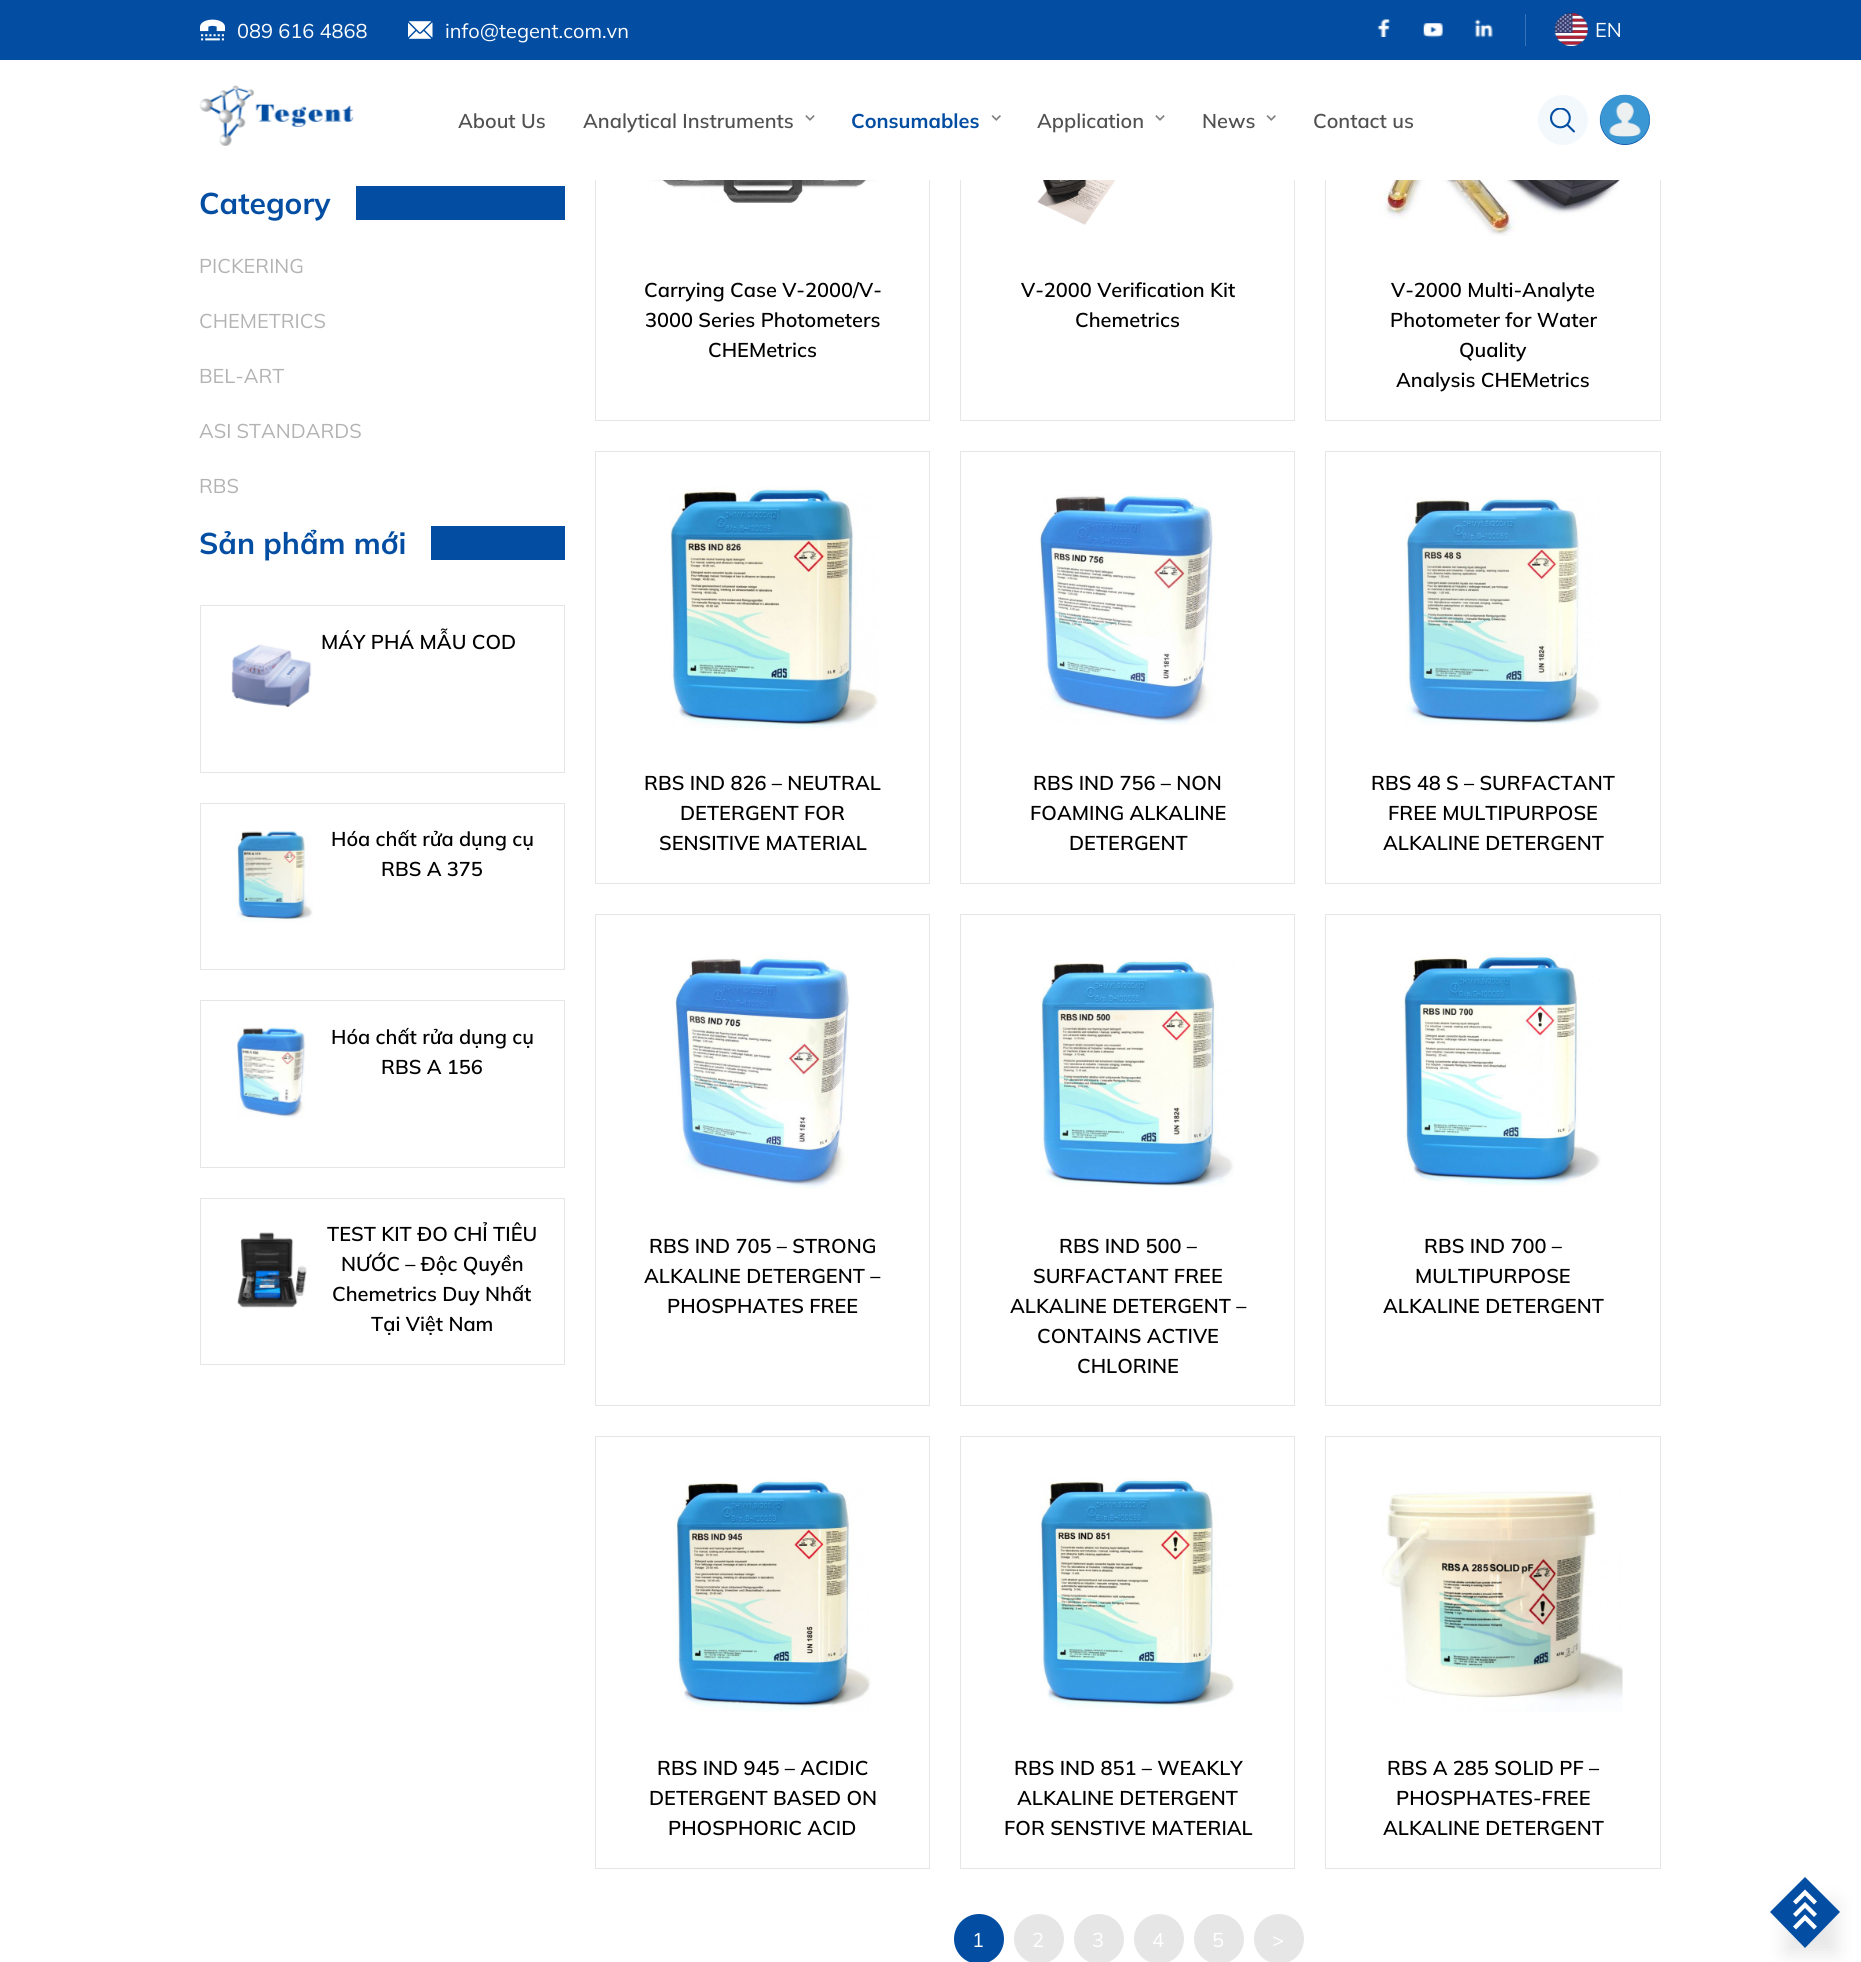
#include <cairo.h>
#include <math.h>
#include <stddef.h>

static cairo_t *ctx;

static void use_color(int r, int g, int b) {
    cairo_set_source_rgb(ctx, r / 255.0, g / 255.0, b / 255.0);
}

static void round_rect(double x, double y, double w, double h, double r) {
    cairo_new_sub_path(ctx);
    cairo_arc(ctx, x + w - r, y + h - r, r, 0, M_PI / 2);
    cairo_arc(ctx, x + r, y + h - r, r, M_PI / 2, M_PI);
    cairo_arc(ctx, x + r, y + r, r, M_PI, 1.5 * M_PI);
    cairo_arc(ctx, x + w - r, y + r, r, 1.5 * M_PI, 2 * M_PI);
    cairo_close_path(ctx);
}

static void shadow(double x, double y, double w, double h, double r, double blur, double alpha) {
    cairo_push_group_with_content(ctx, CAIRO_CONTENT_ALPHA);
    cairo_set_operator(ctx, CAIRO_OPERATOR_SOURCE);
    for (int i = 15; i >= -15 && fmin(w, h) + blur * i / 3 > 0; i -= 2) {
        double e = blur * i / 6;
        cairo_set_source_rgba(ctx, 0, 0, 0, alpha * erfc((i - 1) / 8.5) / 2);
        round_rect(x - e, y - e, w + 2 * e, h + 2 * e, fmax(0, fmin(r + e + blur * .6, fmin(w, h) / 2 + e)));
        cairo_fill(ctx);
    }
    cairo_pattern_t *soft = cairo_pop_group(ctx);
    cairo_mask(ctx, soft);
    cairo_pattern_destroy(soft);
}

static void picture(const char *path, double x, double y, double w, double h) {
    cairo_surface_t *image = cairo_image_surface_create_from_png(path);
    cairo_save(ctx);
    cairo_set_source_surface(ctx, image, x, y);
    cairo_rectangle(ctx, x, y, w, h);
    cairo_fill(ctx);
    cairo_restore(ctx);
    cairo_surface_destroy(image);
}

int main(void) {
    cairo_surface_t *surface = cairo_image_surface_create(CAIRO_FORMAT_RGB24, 1861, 1962);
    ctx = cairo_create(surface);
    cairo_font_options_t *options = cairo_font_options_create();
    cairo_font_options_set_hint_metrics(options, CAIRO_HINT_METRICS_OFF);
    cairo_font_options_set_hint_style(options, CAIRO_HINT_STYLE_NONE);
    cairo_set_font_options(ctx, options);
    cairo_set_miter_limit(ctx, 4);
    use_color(255, 255, 255);
    cairo_paint(ctx);
    cairo_rectangle(ctx, 595.5, -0.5, 334, 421);
    use_color(230, 230, 230);
    cairo_set_line_width(ctx, 1);
    cairo_stroke(ctx);
    cairo_rectangle(ctx, 960.5, -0.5, 334, 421);
    cairo_stroke(ctx);
    cairo_rectangle(ctx, 1325.5, -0.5, 335, 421);
    cairo_stroke(ctx);
    use_color(3, 78, 162);
    cairo_rectangle(ctx, 0, 0, 1861, 60);
    cairo_fill(ctx);
    picture("img1.png", 200, 19, 25, 22);
    cairo_select_font_face(ctx, "Mulish", CAIRO_FONT_SLANT_NORMAL, CAIRO_FONT_WEIGHT_NORMAL);
    cairo_set_font_size(ctx, 20);
    use_color(255, 255, 255);
    cairo_move_to(ctx, 237, 38);
    cairo_show_text(ctx, "089 616 4868");
    picture("img2.png", 408, 21, 25, 18);
    cairo_move_to(ctx, 445, 38);
    cairo_show_text(ctx, "info@tegent.com.vn");
    use_color(53, 113, 181);
    cairo_rectangle(ctx, 1525, 14, 1, 32);
    cairo_fill(ctx);
    picture("img3.png", 1377, 19, 14, 18);
    picture("img4.png", 1423, 23, 20, 15);
    picture("img5.png", 1474, 19, 19, 19);
    picture("img6.png", 1554, 13, 34, 33);
    use_color(255, 255, 255);
    cairo_move_to(ctx, 1595, 37);
    cairo_show_text(ctx, "EN");
    cairo_rectangle(ctx, 595, 60, 1066, 120);
    cairo_fill(ctx);
    picture("img7.png", 199, 85, 155, 61);
    cairo_select_font_face(ctx, "Mulish SemiBold", CAIRO_FONT_SLANT_NORMAL, CAIRO_FONT_WEIGHT_NORMAL);
    use_color(81, 81, 81);
    cairo_move_to(ctx, 458, 128);
    cairo_show_text(ctx, "About Us");
    cairo_move_to(ctx, 583, 128);
    cairo_show_text(ctx, "Analytical Instruments");
    picture("img8.png", 805, 115, 10, 6);
    cairo_select_font_face(ctx, "Mulish", CAIRO_FONT_SLANT_NORMAL, CAIRO_FONT_WEIGHT_BOLD);
    use_color(3, 78, 162);
    cairo_move_to(ctx, 851, 128);
    cairo_show_text(ctx, "Consumables");
    picture("img9.png", 991, 115, 10, 6);
    cairo_select_font_face(ctx, "Mulish SemiBold", CAIRO_FONT_SLANT_NORMAL, CAIRO_FONT_WEIGHT_NORMAL);
    use_color(81, 81, 81);
    cairo_move_to(ctx, 1037, 128);
    cairo_show_text(ctx, "Application");
    picture("img8.png", 1155, 115, 10, 6);
    cairo_move_to(ctx, 1202, 128);
    cairo_show_text(ctx, "News");
    picture("img9.png", 1266, 115, 10, 6);
    cairo_move_to(ctx, 1313, 128);
    cairo_show_text(ctx, "Contact us");
    use_color(243, 248, 253);
    cairo_new_path(ctx);
    cairo_arc(ctx, 1563, 120, 25, 0, 2 * M_PI);
    cairo_fill(ctx);
    picture("img10.png", 1550, 108, 25, 25);
    use_color(3, 78, 162);
    cairo_arc(ctx, 1625, 120, 25, 0, 2 * M_PI);
    cairo_fill(ctx);
    picture("img11.png", 1599, 94, 52, 51);
    cairo_select_font_face(ctx, "Mulish", CAIRO_FONT_SLANT_NORMAL, CAIRO_FONT_WEIGHT_BOLD);
    cairo_set_font_size(ctx, 30);
    cairo_move_to(ctx, 199, 214);
    cairo_show_text(ctx, "Category");
    cairo_rectangle(ctx, 356, 186, 209, 34);
    cairo_fill(ctx);
    cairo_select_font_face(ctx, "Mulish", CAIRO_FONT_SLANT_NORMAL, CAIRO_FONT_WEIGHT_NORMAL);
    cairo_set_font_size(ctx, 20);
    use_color(179, 179, 179);
    cairo_move_to(ctx, 199, 273);
    cairo_show_text(ctx, "PICKERING");
    cairo_move_to(ctx, 199, 328);
    cairo_show_text(ctx, "CHEMETRICS");
    cairo_move_to(ctx, 199, 383);
    cairo_show_text(ctx, "BEL-ART");
    cairo_move_to(ctx, 199, 438);
    cairo_show_text(ctx, "ASI STANDARDS");
    cairo_move_to(ctx, 199, 493);
    cairo_show_text(ctx, "RBS");
    cairo_select_font_face(ctx, "Mulish", CAIRO_FONT_SLANT_NORMAL, CAIRO_FONT_WEIGHT_BOLD);
    cairo_set_font_size(ctx, 30);
    use_color(3, 78, 162);
    cairo_move_to(ctx, 199, 554);
    cairo_show_text(ctx, "Sản phẩm mới");
    cairo_rectangle(ctx, 431, 526, 134, 34);
    cairo_fill(ctx);
    cairo_rectangle(ctx, 200.5, 605.5, 364, 167);
    use_color(230, 230, 230);
    cairo_stroke(ctx);
    cairo_select_font_face(ctx, "Mulish SemiBold", CAIRO_FONT_SLANT_NORMAL, CAIRO_FONT_WEIGHT_NORMAL);
    cairo_set_font_size(ctx, 20);
    use_color(0, 0, 0);
    cairo_move_to(ctx, 321, 649);
    cairo_show_text(ctx, "MÁY PHÁ MẪU COD");
    picture("img12.png", 231, 644, 81, 64);
    cairo_rectangle(ctx, 200.5, 803.5, 364, 166);
    use_color(230, 230, 230);
    cairo_stroke(ctx);
    picture("img13.png", 236, 831, 77, 92);
    use_color(0, 0, 0);
    cairo_move_to(ctx, 331, 846);
    cairo_show_text(ctx, "Hóa chất rửa dụng cụ");
    cairo_move_to(ctx, 381, 876);
    cairo_show_text(ctx, "RBS A 375");
    cairo_rectangle(ctx, 200.5, 1000.5, 364, 167);
    use_color(230, 230, 230);
    cairo_stroke(ctx);
    picture("img14.png", 237, 1027, 69, 91);
    use_color(0, 0, 0);
    cairo_move_to(ctx, 331, 1044);
    cairo_show_text(ctx, "Hóa chất rửa dụng cụ");
    cairo_move_to(ctx, 381, 1074);
    cairo_show_text(ctx, "RBS A 156");
    cairo_rectangle(ctx, 200.5, 1198.5, 364, 166);
    use_color(230, 230, 230);
    cairo_stroke(ctx);
    picture("img15.png", 237, 1232, 70, 76);
    use_color(0, 0, 0);
    cairo_move_to(ctx, 327, 1241);
    cairo_show_text(ctx, "TEST KIT ĐO CHỈ TIÊU");
    cairo_move_to(ctx, 341, 1271);
    cairo_show_text(ctx, "NƯỚC – Độc Quyền");
    cairo_move_to(ctx, 332, 1301);
    cairo_show_text(ctx, "Chemetrics Duy Nhất");
    cairo_move_to(ctx, 371, 1331);
    cairo_show_text(ctx, "Tại Việt Nam");
    picture("img16.png", 643, 180, 240, 23);
    cairo_move_to(ctx, 644, 297);
    cairo_show_text(ctx, "Carrying Case V-2000/V-");
    cairo_move_to(ctx, 645, 327);
    cairo_show_text(ctx, "3000 Series Photometers");
    cairo_move_to(ctx, 708, 357);
    cairo_show_text(ctx, "CHEMetrics");
    picture("img17.png", 1028, 180, 199, 45);
    cairo_move_to(ctx, 1021, 297);
    cairo_show_text(ctx, "V-2000 Verification Kit");
    cairo_move_to(ctx, 1075, 327);
    cairo_show_text(ctx, "Chemetrics");
    picture("img18.png", 1378, 180, 245, 56);
    cairo_move_to(ctx, 1391, 297);
    cairo_show_text(ctx, "V-2000 Multi-Analyte");
    cairo_move_to(ctx, 1390, 327);
    cairo_show_text(ctx, "Photometer for Water");
    cairo_move_to(ctx, 1459, 357);
    cairo_show_text(ctx, "Quality");
    cairo_move_to(ctx, 1396, 387);
    cairo_show_text(ctx, "Analysis CHEMetrics");
    cairo_rectangle(ctx, 595.5, 451.5, 334, 432);
    use_color(230, 230, 230);
    cairo_stroke(ctx);
    picture("img19.png", 670, 487, 208, 242);
    use_color(0, 0, 0);
    cairo_move_to(ctx, 644, 790);
    cairo_show_text(ctx, "RBS IND 826 – NEUTRAL");
    cairo_move_to(ctx, 680, 820);
    cairo_show_text(ctx, "DETERGENT FOR");
    cairo_move_to(ctx, 659, 850);
    cairo_show_text(ctx, "SENSITIVE MATERIAL");
    cairo_rectangle(ctx, 960.5, 451.5, 334, 432);
    use_color(230, 230, 230);
    cairo_stroke(ctx);
    picture("img20.png", 1039, 494, 178, 231);
    use_color(0, 0, 0);
    cairo_move_to(ctx, 1033, 790);
    cairo_show_text(ctx, "RBS IND 756 – NON");
    cairo_move_to(ctx, 1030, 820);
    cairo_show_text(ctx, "FOAMING ALKALINE");
    cairo_move_to(ctx, 1069, 850);
    cairo_show_text(ctx, "DETERGENT");
    cairo_rectangle(ctx, 1325.5, 451.5, 335, 432);
    use_color(230, 230, 230);
    cairo_stroke(ctx);
    picture("img21.png", 1405, 497, 197, 228);
    use_color(0, 0, 0);
    cairo_move_to(ctx, 1371, 790);
    cairo_show_text(ctx, "RBS 48 S – SURFACTANT");
    cairo_move_to(ctx, 1388, 820);
    cairo_show_text(ctx, "FREE MULTIPURPOSE");
    cairo_move_to(ctx, 1383, 850);
    cairo_show_text(ctx, "ALKALINE DETERGENT");
    cairo_rectangle(ctx, 595.5, 914.5, 334, 491);
    use_color(230, 230, 230);
    cairo_stroke(ctx);
    picture("img22.png", 674, 955, 176, 234);
    use_color(0, 0, 0);
    cairo_move_to(ctx, 649, 1253);
    cairo_show_text(ctx, "RBS IND 705 – STRONG");
    cairo_move_to(ctx, 644, 1283);
    cairo_show_text(ctx, "ALKALINE DETERGENT –");
    cairo_move_to(ctx, 667, 1313);
    cairo_show_text(ctx, "PHOSPHATES FREE");
    cairo_rectangle(ctx, 960.5, 914.5, 334, 491);
    use_color(230, 230, 230);
    cairo_stroke(ctx);
    picture("img23.png", 1040, 959, 194, 228);
    use_color(0, 0, 0);
    cairo_move_to(ctx, 1059, 1253);
    cairo_show_text(ctx, "RBS IND 500 –");
    cairo_move_to(ctx, 1033, 1283);
    cairo_show_text(ctx, "SURFACTANT FREE");
    cairo_move_to(ctx, 1010, 1313);
    cairo_show_text(ctx, "ALKALINE DETERGENT –");
    cairo_move_to(ctx, 1037, 1343);
    cairo_show_text(ctx, "CONTAINS ACTIVE");
    cairo_move_to(ctx, 1077, 1373);
    cairo_show_text(ctx, "CHLORINE");
    cairo_rectangle(ctx, 1325.5, 914.5, 335, 491);
    use_color(230, 230, 230);
    cairo_stroke(ctx);
    picture("img24.png", 1403, 952, 198, 234);
    use_color(0, 0, 0);
    cairo_move_to(ctx, 1424, 1253);
    cairo_show_text(ctx, "RBS IND 700 –");
    cairo_move_to(ctx, 1415, 1283);
    cairo_show_text(ctx, "MULTIPURPOSE");
    cairo_move_to(ctx, 1383, 1313);
    cairo_show_text(ctx, "ALKALINE DETERGENT");
    cairo_rectangle(ctx, 595.5, 1436.5, 334, 432);
    use_color(230, 230, 230);
    cairo_stroke(ctx);
    picture("img25.png", 673, 1479, 198, 233);
    use_color(0, 0, 0);
    cairo_move_to(ctx, 657, 1775);
    cairo_show_text(ctx, "RBS IND 945 – ACIDIC");
    cairo_move_to(ctx, 649, 1805);
    cairo_show_text(ctx, "DETERGENT BASED ON");
    cairo_move_to(ctx, 668, 1835);
    cairo_show_text(ctx, "PHOSPHORIC ACID");
    cairo_rectangle(ctx, 960.5, 1436.5, 334, 432);
    use_color(230, 230, 230);
    cairo_stroke(ctx);
    picture("img26.png", 1038, 1478, 197, 231);
    use_color(0, 0, 0);
    cairo_move_to(ctx, 1014, 1775);
    cairo_show_text(ctx, "RBS IND 851 – WEAKLY");
    cairo_move_to(ctx, 1017, 1805);
    cairo_show_text(ctx, "ALKALINE DETERGENT");
    cairo_move_to(ctx, 1004, 1835);
    cairo_show_text(ctx, "FOR SENSTIVE MATERIAL");
    cairo_rectangle(ctx, 1325.5, 1436.5, 335, 432);
    use_color(230, 230, 230);
    cairo_stroke(ctx);
    picture("img27.png", 1381, 1490, 242, 222);
    use_color(0, 0, 0);
    cairo_move_to(ctx, 1387, 1775);
    cairo_show_text(ctx, "RBS A 285 SOLID PF –");
    cairo_move_to(ctx, 1396, 1805);
    cairo_show_text(ctx, "PHOSPHATES-FREE");
    cairo_move_to(ctx, 1383, 1835);
    cairo_show_text(ctx, "ALKALINE DETERGENT");
    use_color(3, 78, 162);
    cairo_new_path(ctx);
    cairo_arc(ctx, 979, 1939, 25, 0, 2 * M_PI);
    cairo_fill(ctx);
    cairo_select_font_face(ctx, "Mulish", CAIRO_FONT_SLANT_NORMAL, CAIRO_FONT_WEIGHT_NORMAL);
    use_color(255, 255, 255);
    cairo_move_to(ctx, 972, 1947);
    cairo_show_text(ctx, "1");
    use_color(230, 230, 230);
    cairo_new_path(ctx);
    cairo_arc(ctx, 1039, 1939, 25, 0, 2 * M_PI);
    cairo_fill(ctx);
    use_color(255, 255, 255);
    cairo_move_to(ctx, 1032, 1947);
    cairo_show_text(ctx, "2");
    use_color(230, 230, 230);
    cairo_new_path(ctx);
    cairo_arc(ctx, 1099, 1939, 25, 0, 2 * M_PI);
    cairo_fill(ctx);
    use_color(255, 255, 255);
    cairo_move_to(ctx, 1092, 1947);
    cairo_show_text(ctx, "3");
    use_color(230, 230, 230);
    cairo_new_path(ctx);
    cairo_arc(ctx, 1159, 1939, 25, 0, 2 * M_PI);
    cairo_fill(ctx);
    use_color(255, 255, 255);
    cairo_move_to(ctx, 1152, 1947);
    cairo_show_text(ctx, "4");
    use_color(230, 230, 230);
    cairo_new_path(ctx);
    cairo_arc(ctx, 1219, 1939, 25, 0, 2 * M_PI);
    cairo_fill(ctx);
    use_color(255, 255, 255);
    cairo_move_to(ctx, 1212, 1947);
    cairo_show_text(ctx, "5");
    use_color(230, 230, 230);
    cairo_new_path(ctx);
    cairo_arc(ctx, 1279, 1939, 25, 0, 2 * M_PI);
    cairo_fill(ctx);
    use_color(255, 255, 255);
    cairo_move_to(ctx, 1272, 1947);
    cairo_show_text(ctx, ">");
    use_color(0, 0, 0);
    shadow(1786, 1903, 50, 50, 0, 9.5, 0.1);
    use_color(3, 78, 162);
    cairo_new_path(ctx);
    cairo_move_to(ctx, 1805, 1877);
    cairo_line_to(ctx, 1840, 1912);
    cairo_line_to(ctx, 1805, 1948);
    cairo_line_to(ctx, 1770, 1912);
    cairo_close_path(ctx);
    cairo_fill(ctx);
    use_color(255, 255, 255);
    cairo_new_path(ctx);
    cairo_move_to(ctx, 1793, 1901.5);
    cairo_line_to(ctx, 1796, 1904.5);
    cairo_line_to(ctx, 1805, 1895.5);
    cairo_line_to(ctx, 1814, 1904.5);
    cairo_line_to(ctx, 1817, 1901.5);
    cairo_line_to(ctx, 1805, 1889.5);
    cairo_close_path(ctx);
    cairo_fill(ctx);
    cairo_new_path(ctx);
    cairo_move_to(ctx, 1793, 1914);
    cairo_line_to(ctx, 1796, 1917);
    cairo_line_to(ctx, 1805, 1908);
    cairo_line_to(ctx, 1814, 1917);
    cairo_line_to(ctx, 1817, 1914);
    cairo_line_to(ctx, 1805, 1902);
    cairo_close_path(ctx);
    cairo_fill(ctx);
    cairo_new_path(ctx);
    cairo_move_to(ctx, 1793, 1926.5);
    cairo_line_to(ctx, 1796, 1929.5);
    cairo_line_to(ctx, 1805, 1920.5);
    cairo_line_to(ctx, 1814, 1929.5);
    cairo_line_to(ctx, 1817, 1926.5);
    cairo_line_to(ctx, 1805, 1914.5);
    cairo_close_path(ctx);
    cairo_fill(ctx);
    cairo_surface_write_to_png(surface, "result.png");
    cairo_font_options_destroy(options);
    cairo_destroy(ctx);
    cairo_surface_destroy(surface);
    return 0;
}
